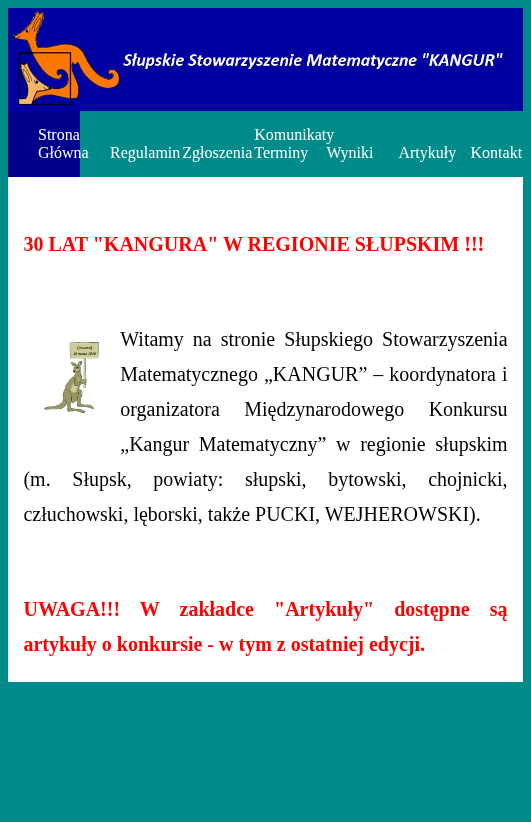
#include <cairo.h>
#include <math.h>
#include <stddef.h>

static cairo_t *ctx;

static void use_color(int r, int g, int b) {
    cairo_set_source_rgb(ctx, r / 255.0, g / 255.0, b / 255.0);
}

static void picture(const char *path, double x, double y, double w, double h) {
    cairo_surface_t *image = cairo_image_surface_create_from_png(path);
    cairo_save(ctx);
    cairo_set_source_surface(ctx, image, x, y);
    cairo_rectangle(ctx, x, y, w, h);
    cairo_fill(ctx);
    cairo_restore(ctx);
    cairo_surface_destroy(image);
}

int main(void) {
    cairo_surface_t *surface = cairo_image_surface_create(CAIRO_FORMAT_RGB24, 531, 822);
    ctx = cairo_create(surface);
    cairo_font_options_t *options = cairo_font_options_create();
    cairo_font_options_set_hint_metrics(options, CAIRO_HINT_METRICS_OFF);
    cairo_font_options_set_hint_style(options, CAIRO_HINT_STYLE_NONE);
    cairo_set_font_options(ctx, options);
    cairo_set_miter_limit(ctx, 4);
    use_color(255, 255, 255);
    cairo_paint(ctx);
    picture("img1.png", 0, 0, 531, 822);
    cairo_surface_write_to_png(surface, "result.png");
    cairo_font_options_destroy(options);
    cairo_destroy(ctx);
    cairo_surface_destroy(surface);
    return 0;
}
